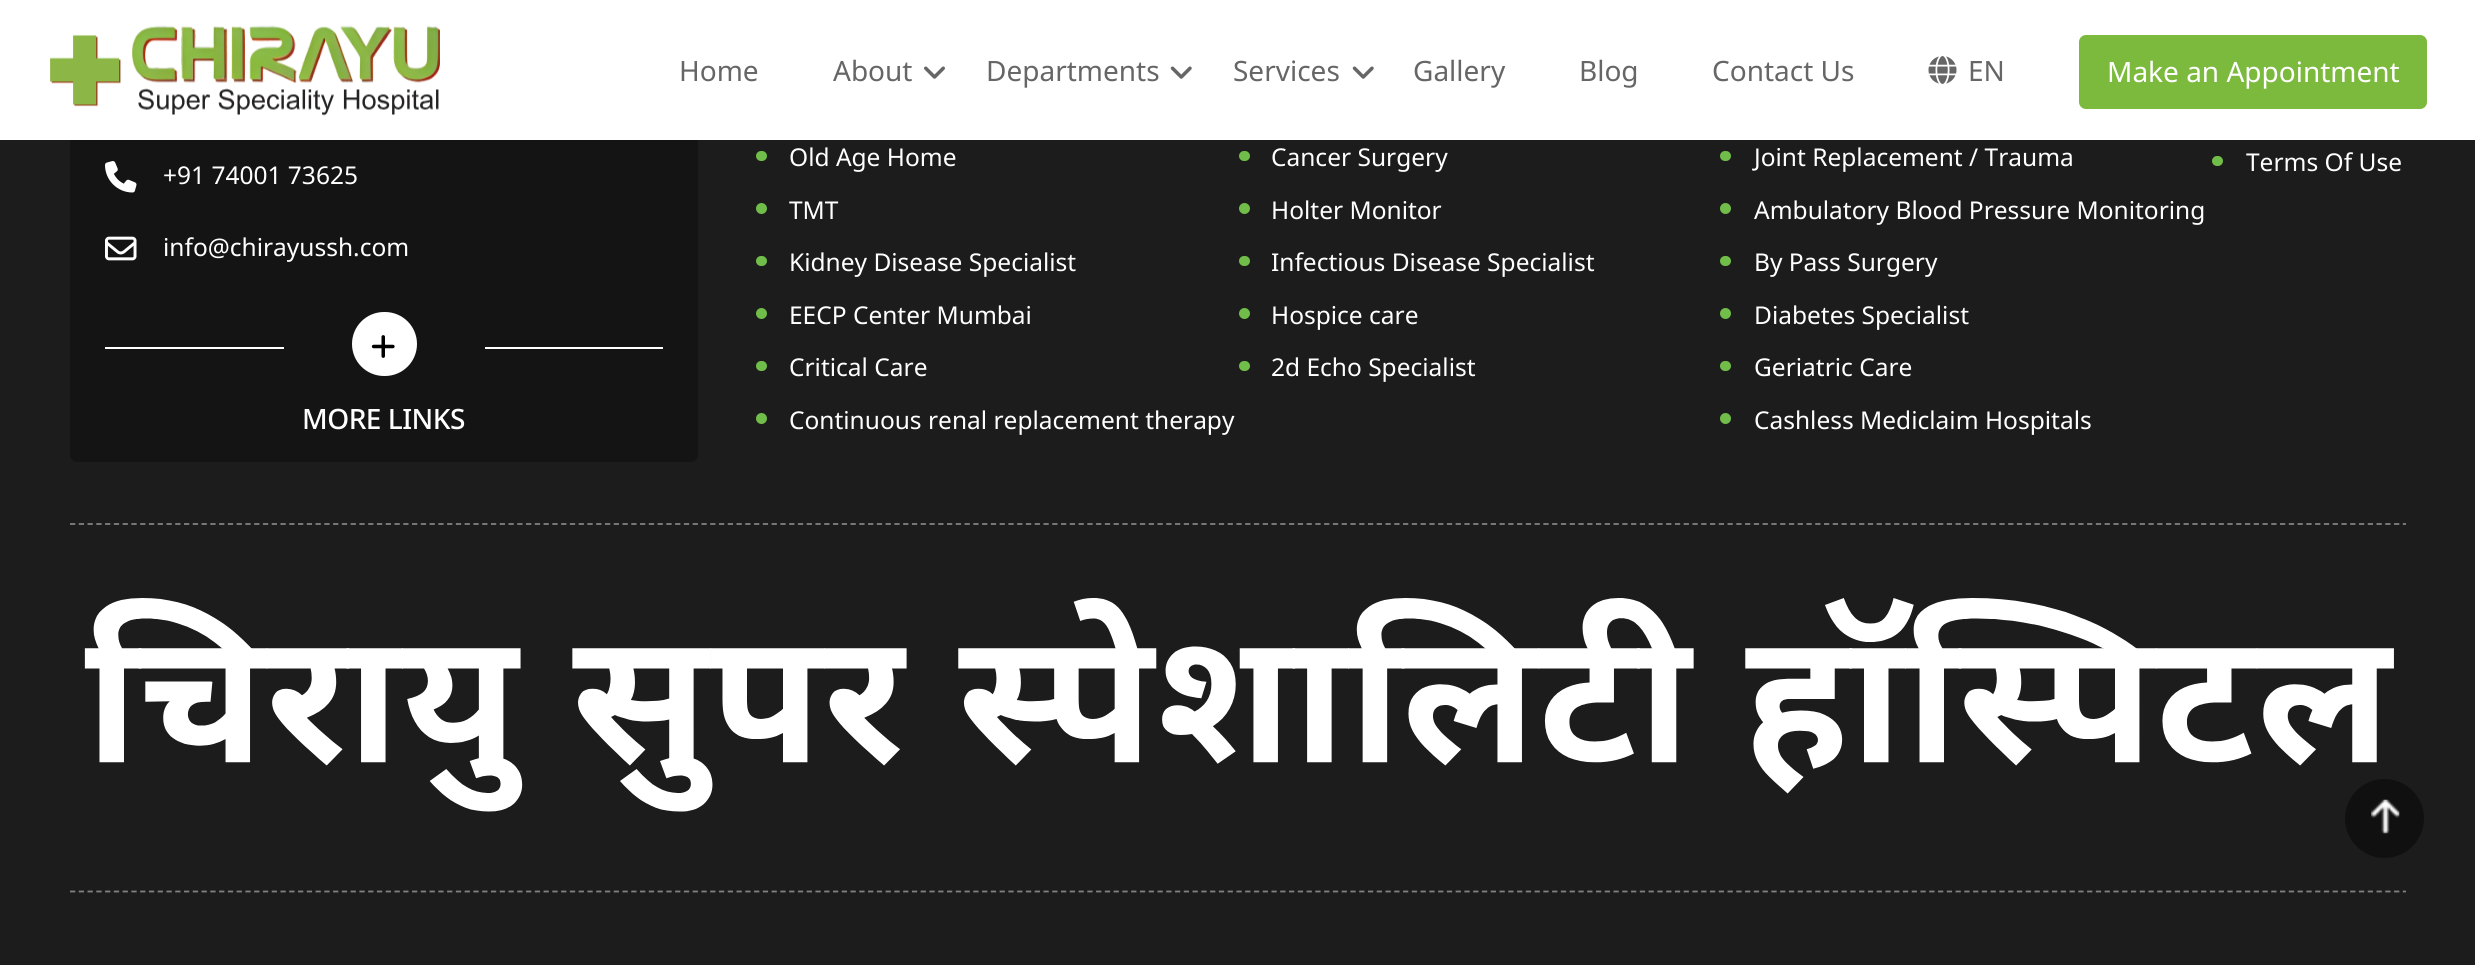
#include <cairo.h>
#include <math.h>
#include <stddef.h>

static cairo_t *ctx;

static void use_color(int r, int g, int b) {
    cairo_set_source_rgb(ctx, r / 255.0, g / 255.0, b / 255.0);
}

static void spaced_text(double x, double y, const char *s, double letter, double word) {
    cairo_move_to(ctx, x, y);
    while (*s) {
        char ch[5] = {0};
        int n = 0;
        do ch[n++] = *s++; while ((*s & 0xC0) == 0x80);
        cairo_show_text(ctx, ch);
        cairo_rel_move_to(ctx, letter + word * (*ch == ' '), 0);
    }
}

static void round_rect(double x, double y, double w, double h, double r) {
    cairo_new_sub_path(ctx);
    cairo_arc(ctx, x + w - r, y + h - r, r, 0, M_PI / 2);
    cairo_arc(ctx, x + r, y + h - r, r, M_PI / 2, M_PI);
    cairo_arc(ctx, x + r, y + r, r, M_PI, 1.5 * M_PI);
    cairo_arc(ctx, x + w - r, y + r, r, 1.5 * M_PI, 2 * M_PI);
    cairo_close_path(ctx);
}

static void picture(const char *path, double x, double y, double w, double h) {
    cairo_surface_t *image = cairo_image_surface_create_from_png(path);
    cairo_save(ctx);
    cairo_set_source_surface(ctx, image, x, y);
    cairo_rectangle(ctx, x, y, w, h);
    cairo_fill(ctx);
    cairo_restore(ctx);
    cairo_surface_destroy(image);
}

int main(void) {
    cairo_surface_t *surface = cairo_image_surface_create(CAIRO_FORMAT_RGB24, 2475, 965);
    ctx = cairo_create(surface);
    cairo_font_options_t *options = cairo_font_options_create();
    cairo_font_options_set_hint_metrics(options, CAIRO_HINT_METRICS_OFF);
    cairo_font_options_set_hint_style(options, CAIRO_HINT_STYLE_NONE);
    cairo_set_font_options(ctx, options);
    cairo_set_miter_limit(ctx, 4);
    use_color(28, 28, 28);
    cairo_paint(ctx);
    use_color(20, 20, 20);
    round_rect(70, -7, 628, 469, 7);
    cairo_fill(ctx);
    use_color(255, 255, 255);
    cairo_rectangle(ctx, 0, 0, 2475, 140);
    cairo_fill(ctx);
    picture("img1.png", 50, 25, 390, 91);
    cairo_select_font_face(ctx, "Noto Sans", CAIRO_FONT_SLANT_NORMAL, CAIRO_FONT_WEIGHT_NORMAL);
    cairo_set_font_size(ctx, 28);
    use_color(102, 102, 102);
    cairo_move_to(ctx, 679, 81);
    cairo_show_text(ctx, "Home");
    cairo_move_to(ctx, 833, 81);
    cairo_show_text(ctx, "About");
    picture("img2.png", 924, 66, 21, 13);
    cairo_move_to(ctx, 986, 81);
    cairo_show_text(ctx, "Departments");
    picture("img3.png", 1170, 66, 22, 13);
    cairo_move_to(ctx, 1233, 81);
    cairo_show_text(ctx, "Services");
    picture("img3.png", 1352, 66, 22, 13);
    cairo_move_to(ctx, 1413, 81);
    cairo_show_text(ctx, "Gallery");
    cairo_move_to(ctx, 1579, 81);
    cairo_show_text(ctx, "Blog");
    cairo_move_to(ctx, 1712, 81);
    cairo_show_text(ctx, "Contact Us");
    picture("img4.png", 1928, 56, 29, 28);
    cairo_move_to(ctx, 1968, 81);
    cairo_show_text(ctx, "EN");
    use_color(124, 186, 61);
    round_rect(2080, 36, 346, 72, 6);
    cairo_fill_preserve(ctx);
    cairo_stroke(ctx);
    use_color(255, 255, 255);
    cairo_move_to(ctx, 2107, 82);
    cairo_show_text(ctx, "Make an Appointment");
    picture("img5.png", 105, 161, 32, 32);
    cairo_set_font_size(ctx, 24.5);
    cairo_move_to(ctx, 163, 184);
    cairo_show_text(ctx, "+91 74001 73625");
    picture("img6.png", 105, 236, 32, 25);
    cairo_move_to(ctx, 163, 256);
    cairo_show_text(ctx, "info@chirayussh.com");
    cairo_rectangle(ctx, 105, 347, 558, 2);
    cairo_fill(ctx);
    use_color(20, 20, 20);
    cairo_rectangle(ctx, 284, 347, 201, 2);
    cairo_fill(ctx);
    use_color(255, 255, 255);
    round_rect(352, 312, 65, 64, 32);
    cairo_fill(ctx);
    picture("img7.png", 371, 335, 24, 23);
    cairo_select_font_face(ctx, "Noto Sans Medium", CAIRO_FONT_SLANT_NORMAL, CAIRO_FONT_WEIGHT_NORMAL);
    cairo_set_font_size(ctx, 28);
    spaced_text(302, 429, "MORE LINKS", -0.5, 0);
    use_color(113, 189, 74);
    round_rect(756, 151, 11, 10, 5);
    cairo_fill(ctx);
    cairo_select_font_face(ctx, "Noto Sans", CAIRO_FONT_SLANT_NORMAL, CAIRO_FONT_WEIGHT_NORMAL);
    cairo_set_font_size(ctx, 24.5);
    use_color(255, 255, 255);
    cairo_move_to(ctx, 789, 166);
    cairo_show_text(ctx, "Old Age Home");
    use_color(113, 189, 74);
    round_rect(1239, 151, 11, 10, 5);
    cairo_fill(ctx);
    use_color(255, 255, 255);
    cairo_move_to(ctx, 1271, 166);
    cairo_show_text(ctx, "Cancer Surgery");
    use_color(113, 189, 74);
    round_rect(1720, 151, 11, 10, 5);
    cairo_fill(ctx);
    use_color(255, 255, 255);
    cairo_move_to(ctx, 1754, 166);
    cairo_show_text(ctx, "Joint Replacement / Trauma");
    use_color(113, 189, 74);
    cairo_new_path(ctx);
    cairo_arc(ctx, 761.5, 208.5, 5.5, 0, 2 * M_PI);
    cairo_fill(ctx);
    use_color(255, 255, 255);
    cairo_move_to(ctx, 789, 219);
    cairo_show_text(ctx, "TMT");
    use_color(113, 189, 74);
    cairo_new_path(ctx);
    cairo_arc(ctx, 1244.5, 208.5, 5.5, 0, 2 * M_PI);
    cairo_fill(ctx);
    use_color(255, 255, 255);
    cairo_move_to(ctx, 1271, 219);
    cairo_show_text(ctx, "Holter Monitor");
    use_color(113, 189, 74);
    cairo_new_path(ctx);
    cairo_arc(ctx, 1725.5, 208.5, 5.5, 0, 2 * M_PI);
    cairo_fill(ctx);
    use_color(255, 255, 255);
    cairo_move_to(ctx, 1754, 219);
    cairo_show_text(ctx, "Ambulatory Blood Pressure Monitoring");
    use_color(113, 189, 74);
    round_rect(756, 256, 11, 10, 5);
    cairo_fill(ctx);
    use_color(255, 255, 255);
    cairo_move_to(ctx, 789, 271);
    cairo_show_text(ctx, "Kidney Disease Specialist");
    use_color(113, 189, 74);
    round_rect(1239, 256, 11, 10, 5);
    cairo_fill(ctx);
    use_color(255, 255, 255);
    cairo_move_to(ctx, 1271, 271);
    cairo_show_text(ctx, "Infectious Disease Specialist");
    use_color(113, 189, 74);
    round_rect(1720, 256, 11, 10, 5);
    cairo_fill(ctx);
    use_color(255, 255, 255);
    cairo_move_to(ctx, 1754, 271);
    cairo_show_text(ctx, "By Pass Surgery");
    use_color(113, 189, 74);
    cairo_new_path(ctx);
    cairo_arc(ctx, 761.5, 313.5, 5.5, 0, 2 * M_PI);
    cairo_fill(ctx);
    use_color(255, 255, 255);
    cairo_move_to(ctx, 789, 324);
    cairo_show_text(ctx, "EECP Center Mumbai");
    use_color(113, 189, 74);
    cairo_new_path(ctx);
    cairo_arc(ctx, 1244.5, 313.5, 5.5, 0, 2 * M_PI);
    cairo_fill(ctx);
    use_color(255, 255, 255);
    cairo_move_to(ctx, 1271, 324);
    cairo_show_text(ctx, "Hospice care");
    use_color(113, 189, 74);
    cairo_new_path(ctx);
    cairo_arc(ctx, 1725.5, 313.5, 5.5, 0, 2 * M_PI);
    cairo_fill(ctx);
    use_color(255, 255, 255);
    cairo_move_to(ctx, 1754, 324);
    cairo_show_text(ctx, "Diabetes Specialist");
    use_color(113, 189, 74);
    round_rect(756, 361, 11, 10, 5);
    cairo_fill(ctx);
    use_color(255, 255, 255);
    cairo_move_to(ctx, 789, 376);
    cairo_show_text(ctx, "Critical Care");
    use_color(113, 189, 74);
    round_rect(1239, 361, 11, 10, 5);
    cairo_fill(ctx);
    use_color(255, 255, 255);
    cairo_move_to(ctx, 1271, 376);
    cairo_show_text(ctx, "2d Echo Specialist");
    use_color(113, 189, 74);
    round_rect(1720, 361, 11, 10, 5);
    cairo_fill(ctx);
    use_color(255, 255, 255);
    cairo_move_to(ctx, 1754, 376);
    cairo_show_text(ctx, "Geriatric Care");
    use_color(113, 189, 74);
    cairo_new_path(ctx);
    cairo_arc(ctx, 761.5, 418.5, 5.5, 0, 2 * M_PI);
    cairo_fill(ctx);
    use_color(255, 255, 255);
    cairo_move_to(ctx, 789, 429);
    cairo_show_text(ctx, "Continuous renal replacement therapy");
    use_color(113, 189, 74);
    cairo_new_path(ctx);
    cairo_arc(ctx, 1725.5, 418.5, 5.5, 0, 2 * M_PI);
    cairo_fill(ctx);
    use_color(255, 255, 255);
    cairo_move_to(ctx, 1754, 429);
    cairo_show_text(ctx, "Cashless Mediclaim Hospitals");
    use_color(113, 189, 74);
    round_rect(2212, 156, 11, 10, 5);
    cairo_fill(ctx);
    use_color(255, 255, 255);
    cairo_move_to(ctx, 2246, 171);
    cairo_show_text(ctx, "Terms Of Use");
    cairo_new_path(ctx);
    cairo_move_to(ctx, 70, 524);
    cairo_line_to(ctx, 2406, 524);
    use_color(128, 128, 128);
    cairo_set_line_width(ctx, 1.8);
    cairo_set_dash(ctx, (double[]){5.25, 3.52}, 2, 0);
    cairo_stroke(ctx);
    picture("img8.png", 84, 598, 2310, 214);
    cairo_new_path(ctx);
    cairo_move_to(ctx, 70, 891.5);
    cairo_line_to(ctx, 2406, 891.5);
    cairo_stroke(ctx);
    use_color(16, 16, 16);
    cairo_arc(ctx, 2384.5, 818.5, 39.5, 0, 2 * M_PI);
    cairo_fill(ctx);
    picture("img9.png", 2371, 799, 29, 35);
    cairo_surface_write_to_png(surface, "result.png");
    cairo_font_options_destroy(options);
    cairo_destroy(ctx);
    cairo_surface_destroy(surface);
    return 0;
}
